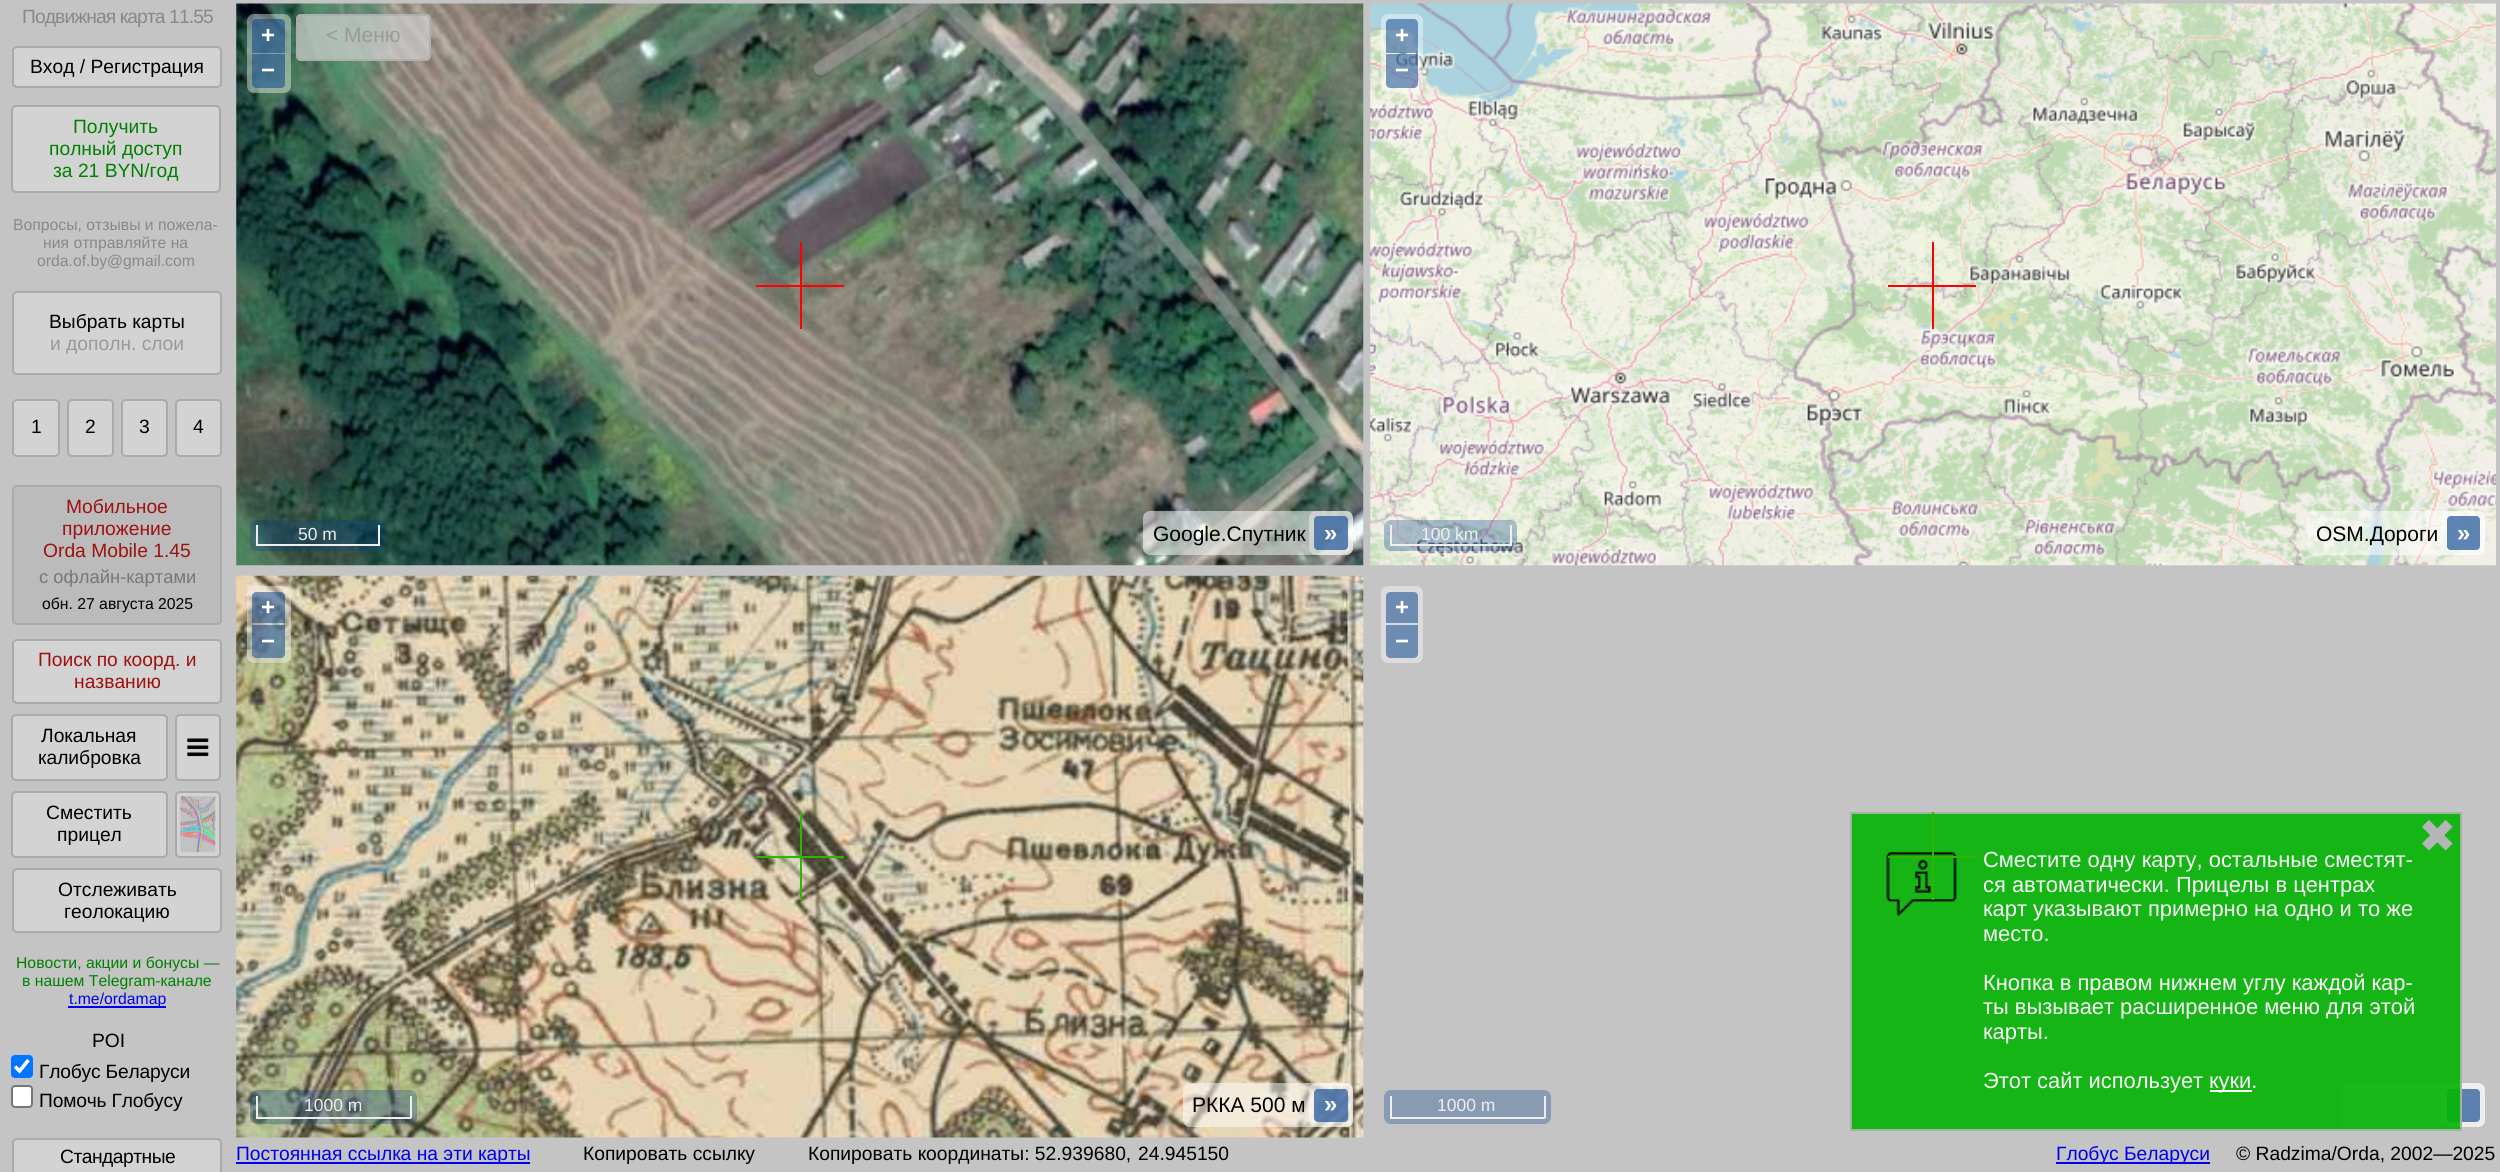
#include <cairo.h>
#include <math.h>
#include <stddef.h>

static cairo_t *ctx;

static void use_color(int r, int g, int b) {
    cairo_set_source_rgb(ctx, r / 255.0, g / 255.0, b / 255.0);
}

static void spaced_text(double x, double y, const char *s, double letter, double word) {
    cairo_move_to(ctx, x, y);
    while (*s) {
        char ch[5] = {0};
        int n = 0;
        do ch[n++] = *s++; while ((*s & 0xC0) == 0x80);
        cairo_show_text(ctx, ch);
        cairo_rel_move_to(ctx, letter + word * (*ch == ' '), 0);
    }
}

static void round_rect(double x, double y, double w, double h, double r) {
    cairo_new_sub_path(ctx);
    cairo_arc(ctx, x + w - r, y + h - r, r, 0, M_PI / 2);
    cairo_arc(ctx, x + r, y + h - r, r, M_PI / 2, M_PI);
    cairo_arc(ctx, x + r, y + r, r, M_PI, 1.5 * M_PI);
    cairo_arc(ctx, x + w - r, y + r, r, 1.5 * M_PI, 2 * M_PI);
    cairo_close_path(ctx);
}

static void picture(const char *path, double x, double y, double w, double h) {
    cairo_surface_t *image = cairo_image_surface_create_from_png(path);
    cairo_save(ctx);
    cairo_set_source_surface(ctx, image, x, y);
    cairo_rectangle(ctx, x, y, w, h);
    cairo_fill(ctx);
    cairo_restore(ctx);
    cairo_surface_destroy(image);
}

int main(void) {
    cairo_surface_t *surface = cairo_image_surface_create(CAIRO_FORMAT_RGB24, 2500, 1172);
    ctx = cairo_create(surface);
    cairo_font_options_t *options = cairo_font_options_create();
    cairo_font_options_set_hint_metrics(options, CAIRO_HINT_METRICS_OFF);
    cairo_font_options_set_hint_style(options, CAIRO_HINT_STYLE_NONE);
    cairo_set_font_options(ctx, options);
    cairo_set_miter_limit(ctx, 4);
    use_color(196, 196, 196);
    cairo_paint(ctx);
    cairo_select_font_face(ctx, "Liberation Sans", CAIRO_FONT_SLANT_NORMAL, CAIRO_FONT_WEIGHT_NORMAL);
    cairo_set_font_size(ctx, 19.25);
    use_color(136, 136, 136);
    spaced_text(22, 23, "Подвижная карта 11.55", -0.9, 0);
    use_color(211, 211, 211);
    round_rect(13, 47, 208, 40, 4);
    cairo_fill_preserve(ctx);
    use_color(170, 170, 170);
    cairo_stroke(ctx);
    use_color(0, 0, 0);
    cairo_move_to(ctx, 30, 73);
    cairo_show_text(ctx, "Вход / Регистрация");
    use_color(211, 211, 211);
    round_rect(12, 106, 208, 86, 4);
    cairo_fill_preserve(ctx);
    use_color(170, 170, 170);
    cairo_stroke(ctx);
    use_color(0, 128, 0);
    cairo_move_to(ctx, 73, 133);
    cairo_show_text(ctx, "Получить");
    cairo_move_to(ctx, 49, 155);
    cairo_show_text(ctx, "полный доступ");
    cairo_move_to(ctx, 53, 177);
    cairo_show_text(ctx, "за 21 BYN/год");
    cairo_set_font_size(ctx, 15.75);
    use_color(136, 136, 136);
    cairo_move_to(ctx, 13, 230);
    cairo_show_text(ctx, "Вопросы, отзывы и пожела-");
    cairo_move_to(ctx, 43, 248);
    cairo_show_text(ctx, "ния отправляйте на");
    cairo_move_to(ctx, 37, 266);
    cairo_show_text(ctx, "orda.of.by@gmail.com");
    use_color(211, 211, 211);
    round_rect(13, 292, 208, 82, 4);
    cairo_fill_preserve(ctx);
    use_color(170, 170, 170);
    cairo_stroke(ctx);
    cairo_set_font_size(ctx, 19.25);
    use_color(0, 0, 0);
    cairo_move_to(ctx, 49, 328);
    cairo_show_text(ctx, "Выбрать карты");
    use_color(153, 153, 153);
    cairo_move_to(ctx, 50, 350);
    cairo_show_text(ctx, "и дополн. слои");
    use_color(211, 211, 211);
    round_rect(13, 400, 46, 56, 4);
    cairo_fill_preserve(ctx);
    use_color(170, 170, 170);
    cairo_stroke(ctx);
    use_color(0, 0, 0);
    cairo_move_to(ctx, 31, 433);
    cairo_show_text(ctx, "1");
    use_color(211, 211, 211);
    round_rect(68, 400, 45, 56, 4);
    cairo_fill_preserve(ctx);
    use_color(170, 170, 170);
    cairo_stroke(ctx);
    use_color(0, 0, 0);
    cairo_move_to(ctx, 85, 433);
    cairo_show_text(ctx, "2");
    use_color(211, 211, 211);
    round_rect(122, 400, 45, 56, 4);
    cairo_fill_preserve(ctx);
    use_color(170, 170, 170);
    cairo_stroke(ctx);
    use_color(0, 0, 0);
    cairo_move_to(ctx, 139, 433);
    cairo_show_text(ctx, "3");
    use_color(211, 211, 211);
    round_rect(176, 400, 45, 56, 4);
    cairo_fill_preserve(ctx);
    use_color(170, 170, 170);
    cairo_stroke(ctx);
    use_color(0, 0, 0);
    cairo_move_to(ctx, 193, 433);
    cairo_show_text(ctx, "4");
    use_color(187, 187, 187);
    round_rect(13, 486, 208, 138, 4);
    cairo_fill_preserve(ctx);
    use_color(170, 170, 170);
    cairo_stroke(ctx);
    use_color(158, 17, 17);
    cairo_move_to(ctx, 66, 513);
    cairo_show_text(ctx, "Мобильное");
    cairo_move_to(ctx, 62, 535);
    cairo_show_text(ctx, "приложение");
    cairo_move_to(ctx, 43, 557);
    cairo_show_text(ctx, "Orda Mobile 1.45");
    cairo_set_font_size(ctx, 18.4);
    use_color(119, 119, 119);
    cairo_move_to(ctx, 39, 583);
    cairo_show_text(ctx, "с офлайн-картами");
    cairo_set_font_size(ctx, 15.75);
    use_color(0, 0, 0);
    cairo_move_to(ctx, 42, 609);
    cairo_show_text(ctx, "обн. 27 августа 2025");
    use_color(211, 211, 211);
    round_rect(13, 640, 208, 63, 4);
    cairo_fill_preserve(ctx);
    use_color(170, 170, 170);
    cairo_stroke(ctx);
    cairo_set_font_size(ctx, 19.25);
    use_color(158, 17, 17);
    cairo_move_to(ctx, 38, 666);
    cairo_show_text(ctx, "Поиск по коорд. и");
    cairo_move_to(ctx, 74, 688);
    cairo_show_text(ctx, "названию");
    use_color(211, 211, 211);
    round_rect(12, 715, 155, 65, 4);
    cairo_fill_preserve(ctx);
    use_color(170, 170, 170);
    cairo_stroke(ctx);
    use_color(0, 0, 0);
    cairo_move_to(ctx, 41, 742);
    cairo_show_text(ctx, "Локальная");
    cairo_move_to(ctx, 38, 764);
    cairo_show_text(ctx, "калибровка");
    use_color(211, 211, 211);
    round_rect(176, 715, 44, 65, 4);
    cairo_fill_preserve(ctx);
    use_color(170, 170, 170);
    cairo_stroke(ctx);
    picture("img1.png", 187, 738, 22, 19);
    use_color(211, 211, 211);
    round_rect(12, 792, 155, 65, 4);
    cairo_fill_preserve(ctx);
    use_color(170, 170, 170);
    cairo_stroke(ctx);
    use_color(0, 0, 0);
    cairo_move_to(ctx, 46, 819);
    cairo_show_text(ctx, "Сместить");
    cairo_move_to(ctx, 57, 841);
    cairo_show_text(ctx, "прицел");
    use_color(211, 211, 211);
    round_rect(176, 792, 44, 65, 4);
    cairo_fill_preserve(ctx);
    use_color(170, 170, 170);
    cairo_stroke(ctx);
    picture("img2.png", 180, 796, 36, 57);
    use_color(211, 211, 211);
    round_rect(13, 869, 208, 63, 4);
    cairo_fill_preserve(ctx);
    use_color(170, 170, 170);
    cairo_stroke(ctx);
    use_color(0, 0, 0);
    cairo_move_to(ctx, 58, 896);
    cairo_show_text(ctx, "Отслеживать");
    cairo_move_to(ctx, 64, 918);
    cairo_show_text(ctx, "геолокацию");
    cairo_set_font_size(ctx, 15.75);
    use_color(0, 128, 0);
    cairo_move_to(ctx, 16, 968);
    cairo_show_text(ctx, "Новости, акции и бонусы —");
    cairo_move_to(ctx, 22, 986);
    cairo_show_text(ctx, "в нашем Telegram-канале");
    use_color(0, 0, 238);
    cairo_rectangle(ctx, 68, 1006, 98, 2);
    cairo_fill(ctx);
    cairo_move_to(ctx, 69, 1004);
    cairo_show_text(ctx, "t.me/ordamap");
    cairo_set_font_size(ctx, 19.25);
    use_color(0, 0, 0);
    cairo_move_to(ctx, 92, 1047);
    cairo_show_text(ctx, "POI");
    use_color(0, 117, 255);
    round_rect(11, 1055, 22, 23, 4);
    cairo_fill(ctx);
    cairo_new_path(ctx);
    cairo_move_to(ctx, 15, 1066.5);
    cairo_line_to(ctx, 19.5, 1071);
    cairo_line_to(ctx, 28.5, 1060);
    use_color(255, 255, 255);
    cairo_set_line_width(ctx, 3.6);
    cairo_stroke(ctx);
    use_color(0, 0, 0);
    spaced_text(39, 1078, "Глобус Беларуси", -0.2, 0);
    use_color(255, 255, 255);
    round_rect(12, 1086, 20, 21, 3);
    cairo_fill_preserve(ctx);
    use_color(118, 118, 118);
    cairo_set_line_width(ctx, 2);
    cairo_stroke(ctx);
    use_color(0, 0, 0);
    spaced_text(39, 1107, "Помочь Глобусу", -0.2, 0);
    use_color(211, 211, 211);
    round_rect(13, 1139, 208, 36, 4);
    cairo_fill_preserve(ctx);
    use_color(170, 170, 170);
    cairo_stroke(ctx);
    use_color(0, 0, 0);
    spaced_text(60, 1163, "Стандартные", -0.5, 0);
    picture("img3.png", 236, 3, 1128, 563);
    cairo_set_source_rgba(ctx, 0.827, 0.827, 0.827, 0.7);
    round_rect(296, 14, 135, 47, 5);
    cairo_fill(ctx);
    round_rect(297, 15, 133, 45, 4);
    cairo_set_source_rgba(ctx, 0.667, 0.667, 0.667, 0.7);
    cairo_stroke(ctx);
    cairo_set_font_size(ctx, 21);
    use_color(153, 153, 153);
    cairo_move_to(ctx, 326, 42);
    cairo_show_text(ctx, "< Меню");
    cairo_set_source_rgba(ctx, 1, 1, 1, 0.4);
    round_rect(247, 14, 44, 79, 7);
    cairo_fill(ctx);
    cairo_set_source_rgba(ctx, 0, 0.235, 0.533, 0.5);
    cairo_new_path(ctx);
    cairo_move_to(ctx, 256, 19);
    cairo_line_to(ctx, 281, 19);
    cairo_curve_to(ctx, 283, 19, 285, 21, 285, 23);
    cairo_line_to(ctx, 285, 53);
    cairo_line_to(ctx, 252, 53);
    cairo_line_to(ctx, 252, 23);
    cairo_curve_to(ctx, 252, 21, 254, 19, 256, 19);
    cairo_close_path(ctx);
    cairo_fill(ctx);
    cairo_select_font_face(ctx, "Liberation Sans", CAIRO_FONT_SLANT_NORMAL, CAIRO_FONT_WEIGHT_BOLD);
    cairo_set_font_size(ctx, 24);
    use_color(255, 255, 255);
    cairo_move_to(ctx, 261, 43);
    cairo_show_text(ctx, "+");
    cairo_set_source_rgba(ctx, 0, 0.235, 0.533, 0.5);
    cairo_new_path(ctx);
    cairo_move_to(ctx, 252, 54);
    cairo_line_to(ctx, 285, 54);
    cairo_line_to(ctx, 285, 84);
    cairo_curve_to(ctx, 285, 86, 283, 88, 281, 88);
    cairo_line_to(ctx, 256, 88);
    cairo_curve_to(ctx, 254, 88, 252, 86, 252, 84);
    cairo_close_path(ctx);
    cairo_fill(ctx);
    use_color(255, 255, 255);
    cairo_move_to(ctx, 261, 78);
    cairo_show_text(ctx, "−");
    cairo_set_source_rgba(ctx, 1, 1, 1, 0.4);
    round_rect(1309, 511, 44, 44, 7);
    cairo_fill(ctx);
    cairo_set_source_rgba(ctx, 0, 0.235, 0.533, 0.5);
    round_rect(1314, 516, 34, 34, 4);
    cairo_fill(ctx);
    cairo_set_source_rgba(ctx, 0, 0.235, 0.533, 0.3);
    round_rect(250, 520, 135, 31, 7);
    cairo_fill(ctx);
    use_color(238, 238, 238);
    cairo_rectangle(ctx, 378, 525, 2, 21);
    cairo_fill(ctx);
    cairo_rectangle(ctx, 256, 544, 124, 2);
    cairo_fill(ctx);
    cairo_rectangle(ctx, 256, 525, 2, 21);
    cairo_fill(ctx);
    cairo_select_font_face(ctx, "Liberation Sans", CAIRO_FONT_SLANT_NORMAL, CAIRO_FONT_WEIGHT_NORMAL);
    cairo_set_font_size(ctx, 17.5);
    cairo_move_to(ctx, 298, 540);
    cairo_show_text(ctx, "50 m");
    cairo_set_source_rgba(ctx, 1, 1, 1, 0.5);
    round_rect(1143, 511, 210, 44, 7);
    cairo_fill(ctx);
    cairo_set_font_size(ctx, 21);
    use_color(0, 0, 0);
    cairo_move_to(ctx, 1153, 541);
    cairo_show_text(ctx, "Google.Спутник");
    cairo_set_source_rgba(ctx, 0, 0.235, 0.533, 0.5);
    round_rect(1314, 516, 34, 34, 4);
    cairo_fill(ctx);
    cairo_select_font_face(ctx, "Liberation Sans", CAIRO_FONT_SLANT_NORMAL, CAIRO_FONT_WEIGHT_BOLD);
    cairo_set_font_size(ctx, 24);
    use_color(255, 255, 255);
    cairo_move_to(ctx, 1324, 541);
    cairo_show_text(ctx, "»");
    use_color(255, 0, 0);
    cairo_rectangle(ctx, 800, 242, 2, 87);
    cairo_fill(ctx);
    cairo_rectangle(ctx, 756, 285, 88, 2);
    cairo_fill(ctx);
    picture("img4.png", 1370, 3, 1126, 563);
    cairo_set_source_rgba(ctx, 1, 1, 1, 0.4);
    round_rect(1381, 14, 42, 79, 7);
    cairo_fill(ctx);
    cairo_set_source_rgba(ctx, 0, 0.235, 0.533, 0.5);
    cairo_new_path(ctx);
    cairo_move_to(ctx, 1390, 19);
    cairo_line_to(ctx, 1414, 19);
    cairo_curve_to(ctx, 1416, 19, 1418, 21, 1418, 23);
    cairo_line_to(ctx, 1418, 53);
    cairo_line_to(ctx, 1386, 53);
    cairo_line_to(ctx, 1386, 23);
    cairo_curve_to(ctx, 1386, 21, 1388, 19, 1390, 19);
    cairo_close_path(ctx);
    cairo_fill(ctx);
    use_color(255, 255, 255);
    cairo_move_to(ctx, 1395, 43);
    cairo_show_text(ctx, "+");
    cairo_set_source_rgba(ctx, 0, 0.235, 0.533, 0.5);
    cairo_new_path(ctx);
    cairo_move_to(ctx, 1386, 54);
    cairo_line_to(ctx, 1418, 54);
    cairo_line_to(ctx, 1418, 84);
    cairo_curve_to(ctx, 1418, 86, 1416, 88, 1414, 88);
    cairo_line_to(ctx, 1390, 88);
    cairo_curve_to(ctx, 1388, 88, 1386, 86, 1386, 84);
    cairo_close_path(ctx);
    cairo_fill(ctx);
    use_color(255, 255, 255);
    cairo_move_to(ctx, 1395, 78);
    cairo_show_text(ctx, "−");
    cairo_set_source_rgba(ctx, 1, 1, 1, 0.4);
    round_rect(2441, 511, 44, 44, 7);
    cairo_fill(ctx);
    cairo_set_source_rgba(ctx, 0, 0.235, 0.533, 0.5);
    round_rect(2447, 516, 33, 34, 4);
    cairo_fill(ctx);
    cairo_set_source_rgba(ctx, 0, 0.235, 0.533, 0.3);
    round_rect(1384, 520, 133, 31, 7);
    cairo_fill(ctx);
    use_color(238, 238, 238);
    cairo_rectangle(ctx, 1510, 525, 2, 21);
    cairo_fill(ctx);
    cairo_rectangle(ctx, 1390, 544, 122, 2);
    cairo_fill(ctx);
    cairo_rectangle(ctx, 1390, 525, 2, 21);
    cairo_fill(ctx);
    cairo_select_font_face(ctx, "Liberation Sans", CAIRO_FONT_SLANT_NORMAL, CAIRO_FONT_WEIGHT_NORMAL);
    cairo_set_font_size(ctx, 17.5);
    cairo_move_to(ctx, 1421, 540);
    cairo_show_text(ctx, "100 km");
    cairo_set_source_rgba(ctx, 1, 1, 1, 0.5);
    round_rect(2307, 511, 178, 44, 7);
    cairo_fill(ctx);
    cairo_set_font_size(ctx, 21);
    use_color(0, 0, 0);
    cairo_move_to(ctx, 2316, 541);
    cairo_show_text(ctx, "OSM.Дороги");
    cairo_set_source_rgba(ctx, 0, 0.235, 0.533, 0.5);
    round_rect(2447, 516, 33, 34, 4);
    cairo_fill(ctx);
    cairo_select_font_face(ctx, "Liberation Sans", CAIRO_FONT_SLANT_NORMAL, CAIRO_FONT_WEIGHT_BOLD);
    cairo_set_font_size(ctx, 24);
    use_color(255, 255, 255);
    cairo_move_to(ctx, 2457, 541);
    cairo_show_text(ctx, "»");
    use_color(255, 0, 0);
    cairo_rectangle(ctx, 1932, 242, 2, 87);
    cairo_fill(ctx);
    cairo_rectangle(ctx, 1888, 285, 88, 2);
    cairo_fill(ctx);
    picture("img5.png", 236, 575, 1128, 563);
    cairo_set_source_rgba(ctx, 1, 1, 1, 0.4);
    round_rect(247, 586, 44, 77, 7);
    cairo_fill(ctx);
    cairo_set_source_rgba(ctx, 0, 0.235, 0.533, 0.5);
    cairo_new_path(ctx);
    cairo_move_to(ctx, 256, 592);
    cairo_line_to(ctx, 281, 592);
    cairo_curve_to(ctx, 283, 592, 285, 594, 285, 596);
    cairo_line_to(ctx, 285, 623);
    cairo_line_to(ctx, 252, 623);
    cairo_line_to(ctx, 252, 596);
    cairo_curve_to(ctx, 252, 594, 254, 592, 256, 592);
    cairo_close_path(ctx);
    cairo_fill(ctx);
    use_color(255, 255, 255);
    cairo_move_to(ctx, 261, 615);
    cairo_show_text(ctx, "+");
    cairo_set_source_rgba(ctx, 0, 0.235, 0.533, 0.5);
    cairo_new_path(ctx);
    cairo_move_to(ctx, 252, 625);
    cairo_line_to(ctx, 285, 625);
    cairo_line_to(ctx, 285, 654);
    cairo_curve_to(ctx, 285, 656, 283, 658, 281, 658);
    cairo_line_to(ctx, 256, 658);
    cairo_curve_to(ctx, 254, 658, 252, 656, 252, 654);
    cairo_close_path(ctx);
    cairo_fill(ctx);
    use_color(255, 255, 255);
    cairo_move_to(ctx, 261, 649);
    cairo_show_text(ctx, "−");
    cairo_set_source_rgba(ctx, 1, 1, 1, 0.4);
    round_rect(1309, 1083, 44, 44, 7);
    cairo_fill(ctx);
    cairo_set_source_rgba(ctx, 0, 0.235, 0.533, 0.5);
    round_rect(1314, 1089, 34, 33, 4);
    cairo_fill(ctx);
    cairo_set_source_rgba(ctx, 0, 0.235, 0.533, 0.3);
    round_rect(250, 1090, 167, 34, 7);
    cairo_fill(ctx);
    use_color(238, 238, 238);
    cairo_rectangle(ctx, 410, 1096, 2, 22);
    cairo_fill(ctx);
    cairo_rectangle(ctx, 256, 1117, 155, 2);
    cairo_fill(ctx);
    cairo_rectangle(ctx, 256, 1096, 2, 22);
    cairo_fill(ctx);
    cairo_select_font_face(ctx, "Liberation Sans", CAIRO_FONT_SLANT_NORMAL, CAIRO_FONT_WEIGHT_NORMAL);
    cairo_set_font_size(ctx, 17.5);
    cairo_move_to(ctx, 304, 1111);
    cairo_show_text(ctx, "1000 m");
    cairo_set_source_rgba(ctx, 1, 1, 1, 0.5);
    round_rect(1183, 1083, 170, 44, 7);
    cairo_fill(ctx);
    cairo_set_font_size(ctx, 21);
    use_color(0, 0, 0);
    cairo_move_to(ctx, 1192, 1112);
    cairo_show_text(ctx, "РККА 500 м");
    cairo_set_source_rgba(ctx, 0, 0.235, 0.533, 0.5);
    round_rect(1314, 1089, 34, 33, 4);
    cairo_fill(ctx);
    cairo_select_font_face(ctx, "Liberation Sans", CAIRO_FONT_SLANT_NORMAL, CAIRO_FONT_WEIGHT_BOLD);
    cairo_set_font_size(ctx, 24);
    use_color(255, 255, 255);
    cairo_move_to(ctx, 1324, 1112);
    cairo_show_text(ctx, "»");
    use_color(49, 180, 4);
    cairo_rectangle(ctx, 800, 812, 2, 88);
    cairo_fill(ctx);
    cairo_rectangle(ctx, 756, 856, 88, 2);
    cairo_fill(ctx);
    use_color(220, 220, 220);
    round_rect(1381, 586, 42, 77, 7);
    cairo_fill(ctx);
    use_color(110, 140, 178);
    cairo_new_path(ctx);
    cairo_move_to(ctx, 1390, 592);
    cairo_line_to(ctx, 1414, 592);
    cairo_curve_to(ctx, 1416, 592, 1418, 594, 1418, 596);
    cairo_line_to(ctx, 1418, 623);
    cairo_line_to(ctx, 1386, 623);
    cairo_line_to(ctx, 1386, 596);
    cairo_curve_to(ctx, 1386, 594, 1388, 592, 1390, 592);
    cairo_close_path(ctx);
    cairo_fill(ctx);
    use_color(255, 255, 255);
    cairo_move_to(ctx, 1395, 615);
    cairo_show_text(ctx, "+");
    use_color(110, 140, 178);
    cairo_new_path(ctx);
    cairo_move_to(ctx, 1386, 625);
    cairo_line_to(ctx, 1418, 625);
    cairo_line_to(ctx, 1418, 654);
    cairo_curve_to(ctx, 1418, 656, 1416, 658, 1414, 658);
    cairo_line_to(ctx, 1390, 658);
    cairo_curve_to(ctx, 1388, 658, 1386, 656, 1386, 654);
    cairo_close_path(ctx);
    cairo_fill(ctx);
    use_color(255, 255, 255);
    cairo_move_to(ctx, 1395, 649);
    cairo_show_text(ctx, "−");
    use_color(220, 220, 220);
    round_rect(2441, 1083, 44, 44, 7);
    cairo_fill(ctx);
    use_color(110, 140, 178);
    round_rect(2447, 1089, 33, 33, 4);
    cairo_fill(ctx);
    cairo_set_source_rgba(ctx, 1, 1, 1, 0.5);
    round_rect(2340, 1083, 145, 44, 7);
    cairo_fill(ctx);
    cairo_set_source_rgba(ctx, 0, 0.235, 0.533, 0.5);
    round_rect(2447, 1089, 33, 33, 4);
    cairo_fill(ctx);
    use_color(137, 155, 178);
    round_rect(1384, 1090, 167, 34, 7);
    cairo_fill(ctx);
    use_color(238, 238, 238);
    cairo_rectangle(ctx, 1544, 1096, 2, 22);
    cairo_fill(ctx);
    cairo_rectangle(ctx, 1390, 1117, 155, 2);
    cairo_fill(ctx);
    cairo_rectangle(ctx, 1390, 1096, 2, 22);
    cairo_fill(ctx);
    cairo_select_font_face(ctx, "Liberation Sans", CAIRO_FONT_SLANT_NORMAL, CAIRO_FONT_WEIGHT_NORMAL);
    cairo_set_font_size(ctx, 17.5);
    cairo_move_to(ctx, 1437, 1111);
    cairo_show_text(ctx, "1000 m");
    cairo_set_source_rgba(ctx, 0.016, 0.706, 0.016, 0.9);
    cairo_rectangle(ctx, 1850, 812, 612, 319);
    cairo_fill(ctx);
    cairo_rectangle(ctx, 1851, 813, 610, 317);
    cairo_set_source_rgba(ctx, 0.702, 0.702, 0.702, 0.9);
    cairo_stroke(ctx);
    picture("img6.png", 1886, 852, 71, 64);
    use_color(49, 180, 4);
    cairo_rectangle(ctx, 1932, 812, 2, 88);
    cairo_fill(ctx);
    cairo_rectangle(ctx, 1888, 856, 88, 2);
    cairo_fill(ctx);
    use_color(0, 0, 238);
    cairo_rectangle(ctx, 236, 1162, 294, 2);
    cairo_fill(ctx);
    cairo_set_font_size(ctx, 19.25);
    cairo_move_to(ctx, 236, 1160);
    cairo_show_text(ctx, "Постоянная ссылка на эти карты");
    use_color(0, 0, 0);
    cairo_move_to(ctx, 583, 1160);
    cairo_show_text(ctx, "Копировать ссылку");
    cairo_move_to(ctx, 808, 1160);
    cairo_show_text(ctx, "Копировать координаты: 52.939680,");
    cairo_move_to(ctx, 1138, 1160);
    cairo_show_text(ctx, "24.945150");
    use_color(0, 0, 238);
    cairo_rectangle(ctx, 2056, 1162, 154, 2);
    cairo_fill(ctx);
    cairo_move_to(ctx, 2056, 1160);
    cairo_show_text(ctx, "Глобус Беларуси");
    use_color(0, 0, 0);
    cairo_move_to(ctx, 2236, 1160);
    cairo_show_text(ctx, "© Radzima/Orda, 2002—2025");
    cairo_select_font_face(ctx, "DejaVu Sans", CAIRO_FONT_SLANT_NORMAL, CAIRO_FONT_WEIGHT_NORMAL);
    cairo_set_font_size(ctx, 46);
    use_color(181, 181, 181);
    cairo_move_to(ctx, 2418, 852);
    cairo_show_text(ctx, "✖");
    cairo_select_font_face(ctx, "Liberation Sans", CAIRO_FONT_SLANT_NORMAL, CAIRO_FONT_WEIGHT_NORMAL);
    cairo_set_font_size(ctx, 21.9);
    use_color(249, 249, 249);
    cairo_move_to(ctx, 1983, 867);
    cairo_show_text(ctx, "Сместите одну карту, остальные сместят-");
    cairo_move_to(ctx, 1983, 892);
    cairo_show_text(ctx, "ся автоматически. Прицелы в центрах");
    cairo_move_to(ctx, 1983, 916);
    cairo_show_text(ctx, "карт указывают примерно на одно и то же");
    cairo_move_to(ctx, 1983, 941);
    cairo_show_text(ctx, "место.");
    cairo_move_to(ctx, 1983, 990);
    cairo_show_text(ctx, "Кнопка в правом нижнем углу каждой кар-");
    cairo_move_to(ctx, 1983, 1014);
    cairo_show_text(ctx, "ты вызывает расширенное меню для этой");
    cairo_move_to(ctx, 1983, 1039);
    cairo_show_text(ctx, "карты.");
    cairo_move_to(ctx, 1983, 1088);
    cairo_show_text(ctx, "Этот сайт использует");
    cairo_rectangle(ctx, 2210, 1090, 42, 2);
    cairo_fill(ctx);
    cairo_move_to(ctx, 2209, 1088);
    cairo_show_text(ctx, "куки.");
    cairo_surface_write_to_png(surface, "result.png");
    cairo_font_options_destroy(options);
    cairo_destroy(ctx);
    cairo_surface_destroy(surface);
    return 0;
}
